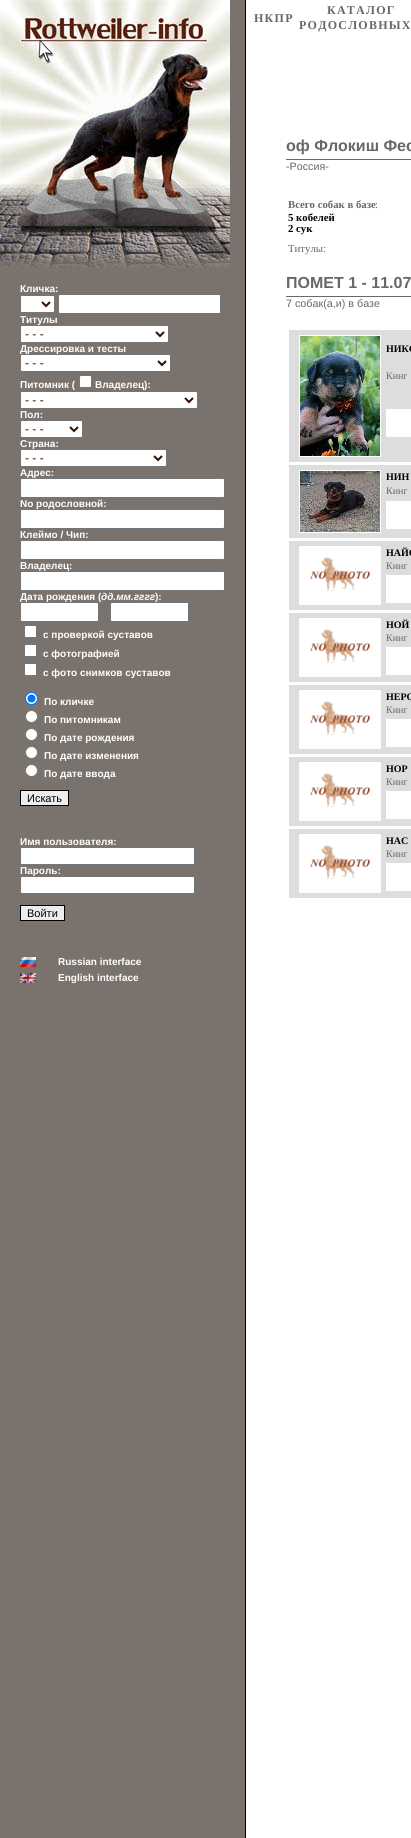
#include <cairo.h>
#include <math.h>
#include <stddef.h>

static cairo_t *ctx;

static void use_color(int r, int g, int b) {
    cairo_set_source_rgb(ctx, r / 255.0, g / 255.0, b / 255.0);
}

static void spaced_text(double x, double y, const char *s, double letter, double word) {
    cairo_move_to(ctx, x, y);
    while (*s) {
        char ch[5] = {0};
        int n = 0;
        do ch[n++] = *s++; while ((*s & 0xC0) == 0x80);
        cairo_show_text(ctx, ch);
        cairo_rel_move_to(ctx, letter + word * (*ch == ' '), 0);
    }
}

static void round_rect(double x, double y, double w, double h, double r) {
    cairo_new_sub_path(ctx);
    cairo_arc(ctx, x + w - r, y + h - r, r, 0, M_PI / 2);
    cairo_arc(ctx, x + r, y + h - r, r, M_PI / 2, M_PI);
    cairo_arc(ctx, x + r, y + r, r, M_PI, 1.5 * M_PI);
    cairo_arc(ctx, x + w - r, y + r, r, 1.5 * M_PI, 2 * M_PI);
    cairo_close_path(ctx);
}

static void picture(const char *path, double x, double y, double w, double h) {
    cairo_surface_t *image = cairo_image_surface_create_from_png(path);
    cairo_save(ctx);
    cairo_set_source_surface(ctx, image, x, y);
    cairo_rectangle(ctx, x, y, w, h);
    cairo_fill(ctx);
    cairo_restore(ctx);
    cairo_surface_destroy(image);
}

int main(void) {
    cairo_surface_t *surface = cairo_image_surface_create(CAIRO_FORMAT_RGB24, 411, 1838);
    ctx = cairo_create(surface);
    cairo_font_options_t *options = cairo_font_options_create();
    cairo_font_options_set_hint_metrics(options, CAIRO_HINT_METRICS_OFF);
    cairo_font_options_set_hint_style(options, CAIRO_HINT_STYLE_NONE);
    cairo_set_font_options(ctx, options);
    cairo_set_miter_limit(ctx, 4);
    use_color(255, 255, 255);
    cairo_paint(ctx);
    use_color(122, 114, 108);
    cairo_rectangle(ctx, 0, 0, 245, 1838);
    cairo_fill(ctx);
    picture("img1.png", 0, 0, 230, 272);
    cairo_select_font_face(ctx, "Liberation Sans", CAIRO_FONT_SLANT_NORMAL, CAIRO_FONT_WEIGHT_BOLD);
    cairo_set_font_size(ctx, 10);
    use_color(255, 255, 255);
    cairo_move_to(ctx, 20, 292);
    cairo_show_text(ctx, "Кличка:");
    round_rect(20.5, 295.5, 34, 17, 1.5);
    cairo_fill_preserve(ctx);
    use_color(118, 118, 118);
    cairo_set_line_width(ctx, 1);
    cairo_stroke(ctx);
    cairo_new_path(ctx);
    cairo_move_to(ctx, 42, 302);
    cairo_line_to(ctx, 46, 306);
    cairo_line_to(ctx, 50, 302);
    use_color(48, 12, 1);
    cairo_set_line_width(ctx, 2);
    cairo_stroke(ctx);
    use_color(255, 255, 255);
    round_rect(58.5, 294.5, 162, 19, 1.5);
    cairo_fill_preserve(ctx);
    use_color(118, 118, 118);
    cairo_set_line_width(ctx, 1);
    cairo_stroke(ctx);
    use_color(255, 255, 255);
    cairo_move_to(ctx, 20, 323);
    cairo_show_text(ctx, "Титулы");
    round_rect(20.5, 325.5, 148, 17, 1.5);
    cairo_fill_preserve(ctx);
    use_color(118, 118, 118);
    cairo_stroke(ctx);
    cairo_new_path(ctx);
    cairo_move_to(ctx, 156, 332);
    cairo_line_to(ctx, 160, 336);
    cairo_line_to(ctx, 164, 332);
    use_color(48, 12, 1);
    cairo_set_line_width(ctx, 2);
    cairo_stroke(ctx);
    cairo_select_font_face(ctx, "Liberation Sans", CAIRO_FONT_SLANT_NORMAL, CAIRO_FONT_WEIGHT_NORMAL);
    cairo_set_font_size(ctx, 12);
    cairo_move_to(ctx, 25, 338);
    cairo_show_text(ctx, "- - -");
    cairo_select_font_face(ctx, "Liberation Sans", CAIRO_FONT_SLANT_NORMAL, CAIRO_FONT_WEIGHT_BOLD);
    cairo_set_font_size(ctx, 10);
    use_color(255, 255, 255);
    cairo_move_to(ctx, 20, 352);
    cairo_show_text(ctx, "Дрессировка и тесты");
    round_rect(20.5, 354.5, 150, 17, 1.5);
    cairo_fill_preserve(ctx);
    use_color(118, 118, 118);
    cairo_set_line_width(ctx, 1);
    cairo_stroke(ctx);
    cairo_new_path(ctx);
    cairo_move_to(ctx, 158, 361);
    cairo_line_to(ctx, 162, 365);
    cairo_line_to(ctx, 166, 361);
    use_color(48, 12, 1);
    cairo_set_line_width(ctx, 2);
    cairo_stroke(ctx);
    cairo_select_font_face(ctx, "Liberation Sans", CAIRO_FONT_SLANT_NORMAL, CAIRO_FONT_WEIGHT_NORMAL);
    cairo_set_font_size(ctx, 12);
    cairo_move_to(ctx, 25, 367);
    cairo_show_text(ctx, "- - -");
    cairo_select_font_face(ctx, "Liberation Sans", CAIRO_FONT_SLANT_NORMAL, CAIRO_FONT_WEIGHT_BOLD);
    cairo_set_font_size(ctx, 10);
    use_color(255, 255, 255);
    cairo_move_to(ctx, 20, 388);
    cairo_show_text(ctx, "Питомник (");
    round_rect(79.5, 375.5, 12, 12, 1.5);
    cairo_fill_preserve(ctx);
    use_color(118, 118, 118);
    cairo_set_line_width(ctx, 1);
    cairo_stroke(ctx);
    use_color(255, 255, 255);
    cairo_move_to(ctx, 95, 388);
    cairo_show_text(ctx, "Владелец):");
    round_rect(20.5, 391.5, 177, 17, 1.5);
    cairo_fill_preserve(ctx);
    use_color(118, 118, 118);
    cairo_stroke(ctx);
    cairo_new_path(ctx);
    cairo_move_to(ctx, 185, 398);
    cairo_line_to(ctx, 189, 402);
    cairo_line_to(ctx, 193, 398);
    use_color(48, 12, 1);
    cairo_set_line_width(ctx, 2);
    cairo_stroke(ctx);
    cairo_select_font_face(ctx, "Liberation Sans", CAIRO_FONT_SLANT_NORMAL, CAIRO_FONT_WEIGHT_NORMAL);
    cairo_set_font_size(ctx, 12);
    cairo_move_to(ctx, 25, 404);
    cairo_show_text(ctx, "- - -");
    cairo_select_font_face(ctx, "Liberation Sans", CAIRO_FONT_SLANT_NORMAL, CAIRO_FONT_WEIGHT_BOLD);
    cairo_set_font_size(ctx, 10);
    use_color(255, 255, 255);
    cairo_move_to(ctx, 20, 418);
    cairo_show_text(ctx, "Пол:");
    round_rect(20.5, 420.5, 62, 17, 1.5);
    cairo_fill_preserve(ctx);
    use_color(118, 118, 118);
    cairo_set_line_width(ctx, 1);
    cairo_stroke(ctx);
    cairo_new_path(ctx);
    cairo_move_to(ctx, 70, 427);
    cairo_line_to(ctx, 74, 431);
    cairo_line_to(ctx, 78, 427);
    use_color(48, 12, 1);
    cairo_set_line_width(ctx, 2);
    cairo_stroke(ctx);
    cairo_select_font_face(ctx, "Liberation Sans", CAIRO_FONT_SLANT_NORMAL, CAIRO_FONT_WEIGHT_NORMAL);
    cairo_set_font_size(ctx, 12);
    cairo_move_to(ctx, 25, 433);
    cairo_show_text(ctx, "- - -");
    cairo_select_font_face(ctx, "Liberation Sans", CAIRO_FONT_SLANT_NORMAL, CAIRO_FONT_WEIGHT_BOLD);
    cairo_set_font_size(ctx, 10);
    use_color(255, 255, 255);
    cairo_move_to(ctx, 20, 447);
    cairo_show_text(ctx, "Страна:");
    round_rect(20.5, 449.5, 146, 17, 1.5);
    cairo_fill_preserve(ctx);
    use_color(118, 118, 118);
    cairo_set_line_width(ctx, 1);
    cairo_stroke(ctx);
    cairo_new_path(ctx);
    cairo_move_to(ctx, 154, 456);
    cairo_line_to(ctx, 158, 460);
    cairo_line_to(ctx, 162, 456);
    use_color(48, 12, 1);
    cairo_set_line_width(ctx, 2);
    cairo_stroke(ctx);
    cairo_select_font_face(ctx, "Liberation Sans", CAIRO_FONT_SLANT_NORMAL, CAIRO_FONT_WEIGHT_NORMAL);
    cairo_set_font_size(ctx, 12);
    cairo_move_to(ctx, 25, 462);
    cairo_show_text(ctx, "- - -");
    cairo_select_font_face(ctx, "Liberation Sans", CAIRO_FONT_SLANT_NORMAL, CAIRO_FONT_WEIGHT_BOLD);
    cairo_set_font_size(ctx, 10);
    use_color(255, 255, 255);
    cairo_move_to(ctx, 20, 476);
    cairo_show_text(ctx, "Адрес:");
    round_rect(20.5, 478.5, 204, 19, 1.5);
    cairo_fill_preserve(ctx);
    use_color(118, 118, 118);
    cairo_set_line_width(ctx, 1);
    cairo_stroke(ctx);
    use_color(255, 255, 255);
    cairo_move_to(ctx, 20, 507);
    cairo_show_text(ctx, "No родословной:");
    round_rect(20.5, 509.5, 204, 19, 1.5);
    cairo_fill_preserve(ctx);
    use_color(118, 118, 118);
    cairo_stroke(ctx);
    use_color(255, 255, 255);
    cairo_move_to(ctx, 20, 538);
    cairo_show_text(ctx, "Клеймо / Чип:");
    round_rect(20.5, 540.5, 204, 19, 1.5);
    cairo_fill_preserve(ctx);
    use_color(118, 118, 118);
    cairo_stroke(ctx);
    use_color(255, 255, 255);
    cairo_move_to(ctx, 20, 569);
    cairo_show_text(ctx, "Владелец:");
    round_rect(20.5, 571.5, 204, 19, 1.5);
    cairo_fill_preserve(ctx);
    use_color(118, 118, 118);
    cairo_stroke(ctx);
    use_color(255, 255, 255);
    cairo_move_to(ctx, 20, 600);
    cairo_show_text(ctx, "Дата рождения (");
    cairo_select_font_face(ctx, "Liberation Sans", CAIRO_FONT_SLANT_ITALIC, CAIRO_FONT_WEIGHT_BOLD);
    cairo_move_to(ctx, 101, 600);
    cairo_show_text(ctx, "дд.мм.гггг");
    cairo_select_font_face(ctx, "Liberation Sans", CAIRO_FONT_SLANT_NORMAL, CAIRO_FONT_WEIGHT_BOLD);
    cairo_move_to(ctx, 155, 600);
    cairo_show_text(ctx, "):");
    round_rect(20.5, 602.5, 78, 19, 1.5);
    cairo_fill_preserve(ctx);
    use_color(118, 118, 118);
    cairo_stroke(ctx);
    use_color(255, 255, 255);
    round_rect(110.5, 602.5, 78, 19, 1.5);
    cairo_fill_preserve(ctx);
    use_color(118, 118, 118);
    cairo_stroke(ctx);
    use_color(255, 255, 255);
    round_rect(24.5, 625.5, 12, 12, 1.5);
    cairo_fill_preserve(ctx);
    use_color(118, 118, 118);
    cairo_stroke(ctx);
    use_color(255, 255, 255);
    cairo_move_to(ctx, 43, 638);
    cairo_show_text(ctx, "с проверкой суставов");
    round_rect(24.5, 644.5, 12, 12, 1.5);
    cairo_fill_preserve(ctx);
    use_color(118, 118, 118);
    cairo_stroke(ctx);
    use_color(255, 255, 255);
    cairo_move_to(ctx, 43, 657);
    cairo_show_text(ctx, "с фотографией");
    round_rect(24.5, 663.5, 12, 12, 1.5);
    cairo_fill_preserve(ctx);
    use_color(118, 118, 118);
    cairo_stroke(ctx);
    use_color(255, 255, 255);
    cairo_move_to(ctx, 43, 676);
    cairo_show_text(ctx, "с фото снимков суставов");
    cairo_new_path(ctx);
    cairo_arc(ctx, 31.5, 698.5, 6, 0, 2 * M_PI);
    cairo_fill_preserve(ctx);
    use_color(0, 117, 255);
    cairo_stroke(ctx);
    cairo_arc(ctx, 31.5, 698.5, 4, 0, 2 * M_PI);
    cairo_fill(ctx);
    use_color(255, 255, 255);
    cairo_move_to(ctx, 44, 705);
    cairo_show_text(ctx, "По кличке");
    cairo_new_path(ctx);
    cairo_arc(ctx, 31.5, 716.5, 6, 0, 2 * M_PI);
    cairo_fill_preserve(ctx);
    use_color(118, 118, 118);
    cairo_stroke(ctx);
    use_color(255, 255, 255);
    cairo_move_to(ctx, 44, 723);
    cairo_show_text(ctx, "По питомникам");
    cairo_new_path(ctx);
    cairo_arc(ctx, 31.5, 734.5, 6, 0, 2 * M_PI);
    cairo_fill_preserve(ctx);
    use_color(118, 118, 118);
    cairo_stroke(ctx);
    use_color(255, 255, 255);
    cairo_move_to(ctx, 44, 741);
    cairo_show_text(ctx, "По дате рождения");
    cairo_new_path(ctx);
    cairo_arc(ctx, 31.5, 752.5, 6, 0, 2 * M_PI);
    cairo_fill_preserve(ctx);
    use_color(118, 118, 118);
    cairo_stroke(ctx);
    use_color(255, 255, 255);
    cairo_move_to(ctx, 44, 759);
    cairo_show_text(ctx, "По дате изменения");
    cairo_new_path(ctx);
    cairo_arc(ctx, 31.5, 770.5, 6, 0, 2 * M_PI);
    cairo_fill_preserve(ctx);
    use_color(118, 118, 118);
    cairo_stroke(ctx);
    use_color(255, 255, 255);
    cairo_move_to(ctx, 44, 777);
    cairo_show_text(ctx, "По дате ввода");
    use_color(237, 237, 237);
    cairo_rectangle(ctx, 20.5, 790.5, 48, 15);
    cairo_fill_preserve(ctx);
    use_color(0, 0, 0);
    cairo_stroke(ctx);
    cairo_select_font_face(ctx, "Liberation Sans", CAIRO_FONT_SLANT_NORMAL, CAIRO_FONT_WEIGHT_NORMAL);
    cairo_set_font_size(ctx, 11);
    cairo_move_to(ctx, 27, 802);
    cairo_show_text(ctx, "Искать");
    cairo_select_font_face(ctx, "Liberation Sans", CAIRO_FONT_SLANT_NORMAL, CAIRO_FONT_WEIGHT_BOLD);
    cairo_set_font_size(ctx, 10);
    use_color(255, 255, 255);
    cairo_move_to(ctx, 20, 845);
    cairo_show_text(ctx, "Имя пользователя:");
    round_rect(20.5, 847.5, 174, 17, 1.5);
    cairo_fill_preserve(ctx);
    use_color(118, 118, 118);
    cairo_stroke(ctx);
    use_color(255, 255, 255);
    cairo_move_to(ctx, 20, 874);
    cairo_show_text(ctx, "Пароль:");
    round_rect(20.5, 876.5, 174, 17, 1.5);
    cairo_fill_preserve(ctx);
    use_color(118, 118, 118);
    cairo_stroke(ctx);
    use_color(237, 237, 237);
    cairo_rectangle(ctx, 20.5, 905.5, 44, 15);
    cairo_fill_preserve(ctx);
    use_color(0, 0, 0);
    cairo_stroke(ctx);
    cairo_select_font_face(ctx, "Liberation Sans", CAIRO_FONT_SLANT_NORMAL, CAIRO_FONT_WEIGHT_NORMAL);
    cairo_set_font_size(ctx, 11);
    cairo_move_to(ctx, 27, 917);
    cairo_show_text(ctx, "Войти");
    picture("img2.png", 20, 957, 16, 10);
    cairo_select_font_face(ctx, "Liberation Sans", CAIRO_FONT_SLANT_NORMAL, CAIRO_FONT_WEIGHT_BOLD);
    cairo_set_font_size(ctx, 10);
    use_color(255, 255, 255);
    cairo_move_to(ctx, 58, 965);
    cairo_show_text(ctx, "Russian interface");
    picture("img3.png", 20, 973, 16, 10);
    cairo_move_to(ctx, 58, 981);
    cairo_show_text(ctx, "English interface");
    use_color(0, 0, 0);
    cairo_rectangle(ctx, 245, 0, 1, 1838);
    cairo_fill(ctx);
    cairo_select_font_face(ctx, "Liberation Serif", CAIRO_FONT_SLANT_NORMAL, CAIRO_FONT_WEIGHT_BOLD);
    cairo_set_font_size(ctx, 12);
    use_color(104, 104, 104);
    spaced_text(254, 22, "НКПР", 1.25, 0);
    spaced_text(327, 14, "КАТАЛОГ", 1.25, 0);
    spaced_text(299, 29, "РОДОСЛОВНЫХ", 1.25, 0);
    cairo_select_font_face(ctx, "Liberation Sans", CAIRO_FONT_SLANT_NORMAL, CAIRO_FONT_WEIGHT_BOLD);
    cairo_set_font_size(ctx, 16);
    cairo_move_to(ctx, 286, 151);
    cairo_show_text(ctx, "оф Флокиш Фес");
    cairo_rectangle(ctx, 286, 159, 125, 1);
    cairo_fill(ctx);
    cairo_select_font_face(ctx, "Liberation Sans", CAIRO_FONT_SLANT_NORMAL, CAIRO_FONT_WEIGHT_NORMAL);
    cairo_set_font_size(ctx, 10.75);
    cairo_move_to(ctx, 286, 170);
    cairo_show_text(ctx, "-Россия-");
    cairo_select_font_face(ctx, "Liberation Serif", CAIRO_FONT_SLANT_NORMAL, CAIRO_FONT_WEIGHT_BOLD);
    cairo_move_to(ctx, 288, 208);
    cairo_show_text(ctx, "Всего собак в базе");
    cairo_select_font_face(ctx, "Liberation Serif", CAIRO_FONT_SLANT_NORMAL, CAIRO_FONT_WEIGHT_NORMAL);
    cairo_move_to(ctx, 375, 208);
    cairo_show_text(ctx, ":");
    cairo_select_font_face(ctx, "Liberation Serif", CAIRO_FONT_SLANT_NORMAL, CAIRO_FONT_WEIGHT_BOLD);
    use_color(0, 0, 0);
    cairo_move_to(ctx, 288, 221);
    cairo_show_text(ctx, "5 кобелей");
    cairo_move_to(ctx, 288, 232);
    cairo_show_text(ctx, "2 сук");
    cairo_select_font_face(ctx, "Liberation Serif", CAIRO_FONT_SLANT_NORMAL, CAIRO_FONT_WEIGHT_NORMAL);
    use_color(104, 104, 104);
    cairo_move_to(ctx, 288, 252);
    cairo_show_text(ctx, "Титулы:");
    cairo_select_font_face(ctx, "Liberation Sans", CAIRO_FONT_SLANT_NORMAL, CAIRO_FONT_WEIGHT_BOLD);
    cairo_set_font_size(ctx, 16);
    cairo_move_to(ctx, 286, 288);
    cairo_show_text(ctx, "ПОМЕТ 1 - 11.07");
    cairo_rectangle(ctx, 286, 296, 125, 1);
    cairo_fill(ctx);
    cairo_select_font_face(ctx, "Liberation Sans", CAIRO_FONT_SLANT_NORMAL, CAIRO_FONT_WEIGHT_NORMAL);
    cairo_set_font_size(ctx, 10.75);
    cairo_move_to(ctx, 286, 307);
    cairo_show_text(ctx, "7 собак(а,и) в базе");
    use_color(221, 221, 221);
    cairo_rectangle(ctx, 289, 330, 122, 132);
    cairo_fill(ctx);
    cairo_rectangle(ctx, 299.5, 335.5, 81, 121);
    use_color(255, 255, 255);
    cairo_stroke(ctx);
    picture("img4.png", 300, 336, 80, 120);
    cairo_select_font_face(ctx, "Liberation Serif", CAIRO_FONT_SLANT_NORMAL, CAIRO_FONT_WEIGHT_BOLD);
    cairo_set_font_size(ctx, 10);
    use_color(0, 0, 0);
    cairo_move_to(ctx, 386, 352);
    cairo_show_text(ctx, "НИКС");
    cairo_select_font_face(ctx, "Liberation Serif", CAIRO_FONT_SLANT_NORMAL, CAIRO_FONT_WEIGHT_NORMAL);
    use_color(104, 104, 104);
    cairo_move_to(ctx, 386, 379);
    cairo_show_text(ctx, "Кинг");
    use_color(255, 255, 255);
    cairo_rectangle(ctx, 386, 409, 25, 28);
    cairo_fill(ctx);
    use_color(221, 221, 221);
    cairo_rectangle(ctx, 289, 465, 122, 73);
    cairo_fill(ctx);
    cairo_rectangle(ctx, 299.5, 470.5, 81, 62);
    use_color(255, 255, 255);
    cairo_stroke(ctx);
    picture("img5.png", 300, 471, 80, 61);
    cairo_select_font_face(ctx, "Liberation Serif", CAIRO_FONT_SLANT_NORMAL, CAIRO_FONT_WEIGHT_BOLD);
    use_color(0, 0, 0);
    cairo_move_to(ctx, 386, 480);
    cairo_show_text(ctx, "НИН");
    cairo_select_font_face(ctx, "Liberation Serif", CAIRO_FONT_SLANT_NORMAL, CAIRO_FONT_WEIGHT_NORMAL);
    use_color(104, 104, 104);
    cairo_move_to(ctx, 386, 494);
    cairo_show_text(ctx, "Кинг");
    use_color(255, 255, 255);
    cairo_rectangle(ctx, 386, 501, 25, 28);
    cairo_fill(ctx);
    use_color(221, 221, 221);
    cairo_rectangle(ctx, 289, 541, 122, 69);
    cairo_fill(ctx);
    cairo_rectangle(ctx, 299.5, 546.5, 81, 58);
    use_color(255, 255, 255);
    cairo_stroke(ctx);
    picture("img6.png", 300, 547, 80, 57);
    cairo_select_font_face(ctx, "Liberation Serif", CAIRO_FONT_SLANT_NORMAL, CAIRO_FONT_WEIGHT_BOLD);
    use_color(0, 0, 0);
    cairo_move_to(ctx, 386, 556);
    cairo_show_text(ctx, "НАЙС");
    cairo_select_font_face(ctx, "Liberation Serif", CAIRO_FONT_SLANT_NORMAL, CAIRO_FONT_WEIGHT_NORMAL);
    use_color(104, 104, 104);
    cairo_move_to(ctx, 386, 569);
    cairo_show_text(ctx, "Кинг");
    use_color(255, 255, 255);
    cairo_rectangle(ctx, 386, 575, 25, 28);
    cairo_fill(ctx);
    use_color(221, 221, 221);
    cairo_rectangle(ctx, 289, 613, 122, 69);
    cairo_fill(ctx);
    cairo_rectangle(ctx, 299.5, 618.5, 81, 58);
    use_color(255, 255, 255);
    cairo_stroke(ctx);
    picture("img7.png", 300, 619, 80, 57);
    cairo_select_font_face(ctx, "Liberation Serif", CAIRO_FONT_SLANT_NORMAL, CAIRO_FONT_WEIGHT_BOLD);
    use_color(0, 0, 0);
    cairo_move_to(ctx, 386, 628);
    cairo_show_text(ctx, "НОЙ");
    cairo_select_font_face(ctx, "Liberation Serif", CAIRO_FONT_SLANT_NORMAL, CAIRO_FONT_WEIGHT_NORMAL);
    use_color(104, 104, 104);
    cairo_move_to(ctx, 386, 641);
    cairo_show_text(ctx, "Кинг");
    use_color(255, 255, 255);
    cairo_rectangle(ctx, 386, 647, 25, 28);
    cairo_fill(ctx);
    use_color(221, 221, 221);
    cairo_rectangle(ctx, 289, 685, 122, 69);
    cairo_fill(ctx);
    cairo_rectangle(ctx, 299.5, 690.5, 81, 58);
    use_color(255, 255, 255);
    cairo_stroke(ctx);
    picture("img7.png", 300, 691, 80, 57);
    cairo_select_font_face(ctx, "Liberation Serif", CAIRO_FONT_SLANT_NORMAL, CAIRO_FONT_WEIGHT_BOLD);
    use_color(0, 0, 0);
    cairo_move_to(ctx, 386, 700);
    cairo_show_text(ctx, "НЕРО");
    cairo_select_font_face(ctx, "Liberation Serif", CAIRO_FONT_SLANT_NORMAL, CAIRO_FONT_WEIGHT_NORMAL);
    use_color(104, 104, 104);
    cairo_move_to(ctx, 386, 713);
    cairo_show_text(ctx, "Кинг");
    use_color(255, 255, 255);
    cairo_rectangle(ctx, 386, 719, 25, 28);
    cairo_fill(ctx);
    use_color(221, 221, 221);
    cairo_rectangle(ctx, 289, 757, 122, 69);
    cairo_fill(ctx);
    cairo_rectangle(ctx, 299.5, 762.5, 81, 58);
    use_color(255, 255, 255);
    cairo_stroke(ctx);
    picture("img7.png", 300, 763, 80, 57);
    cairo_select_font_face(ctx, "Liberation Serif", CAIRO_FONT_SLANT_NORMAL, CAIRO_FONT_WEIGHT_BOLD);
    use_color(0, 0, 0);
    cairo_move_to(ctx, 386, 772);
    cairo_show_text(ctx, "НОР");
    cairo_select_font_face(ctx, "Liberation Serif", CAIRO_FONT_SLANT_NORMAL, CAIRO_FONT_WEIGHT_NORMAL);
    use_color(104, 104, 104);
    cairo_move_to(ctx, 386, 785);
    cairo_show_text(ctx, "Кинг");
    use_color(255, 255, 255);
    cairo_rectangle(ctx, 386, 791, 25, 28);
    cairo_fill(ctx);
    use_color(221, 221, 221);
    cairo_rectangle(ctx, 289, 829, 122, 69);
    cairo_fill(ctx);
    cairo_rectangle(ctx, 299.5, 834.5, 81, 58);
    use_color(255, 255, 255);
    cairo_stroke(ctx);
    picture("img7.png", 300, 835, 80, 57);
    cairo_select_font_face(ctx, "Liberation Serif", CAIRO_FONT_SLANT_NORMAL, CAIRO_FONT_WEIGHT_BOLD);
    use_color(0, 0, 0);
    cairo_move_to(ctx, 386, 844);
    cairo_show_text(ctx, "НАС");
    cairo_select_font_face(ctx, "Liberation Serif", CAIRO_FONT_SLANT_NORMAL, CAIRO_FONT_WEIGHT_NORMAL);
    use_color(104, 104, 104);
    cairo_move_to(ctx, 386, 857);
    cairo_show_text(ctx, "Кинг");
    use_color(255, 255, 255);
    cairo_rectangle(ctx, 386, 863, 25, 28);
    cairo_fill(ctx);
    cairo_surface_write_to_png(surface, "result.png");
    cairo_font_options_destroy(options);
    cairo_destroy(ctx);
    cairo_surface_destroy(surface);
    return 0;
}
